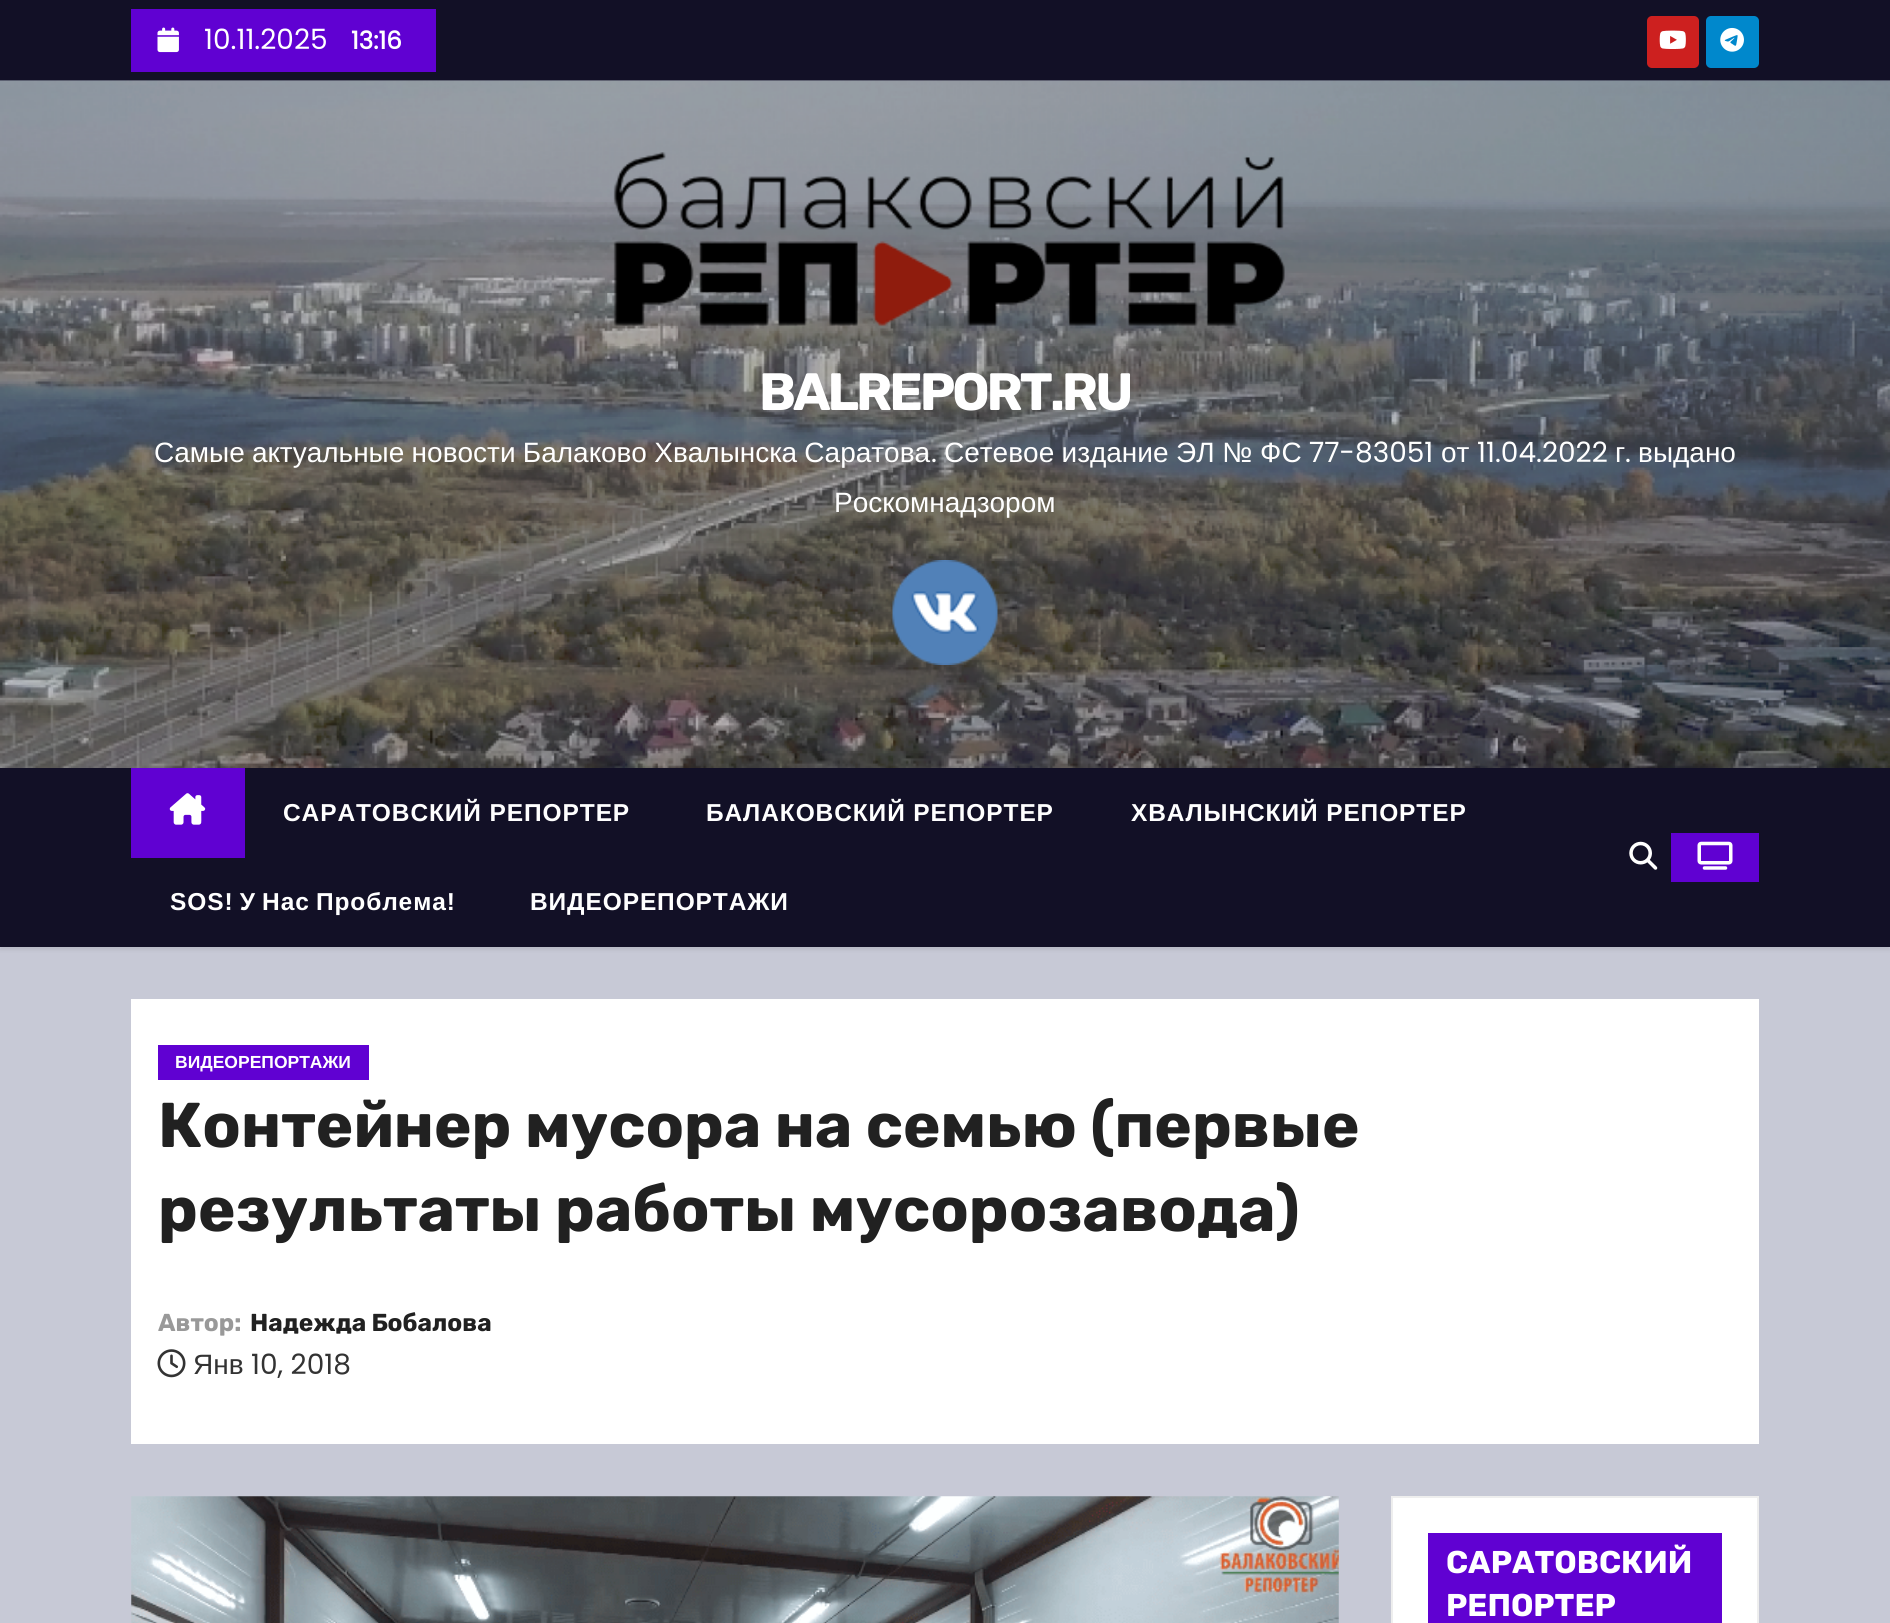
#include <cairo.h>
#include <math.h>
#include <stddef.h>

static cairo_t *ctx;

static void use_color(int r, int g, int b) {
    cairo_set_source_rgb(ctx, r / 255.0, g / 255.0, b / 255.0);
}

static void spaced_text(double x, double y, const char *s, double letter, double word) {
    cairo_move_to(ctx, x, y);
    while (*s) {
        char ch[5] = {0};
        int n = 0;
        do ch[n++] = *s++; while ((*s & 0xC0) == 0x80);
        cairo_show_text(ctx, ch);
        cairo_rel_move_to(ctx, letter + word * (*ch == ' '), 0);
    }
}

static void round_rect(double x, double y, double w, double h, double r) {
    cairo_new_sub_path(ctx);
    cairo_arc(ctx, x + w - r, y + h - r, r, 0, M_PI / 2);
    cairo_arc(ctx, x + r, y + h - r, r, M_PI / 2, M_PI);
    cairo_arc(ctx, x + r, y + r, r, M_PI, 1.5 * M_PI);
    cairo_arc(ctx, x + w - r, y + r, r, 1.5 * M_PI, 2 * M_PI);
    cairo_close_path(ctx);
}

static void shadow(double x, double y, double w, double h, double r, double blur, double alpha) {
    cairo_push_group_with_content(ctx, CAIRO_CONTENT_ALPHA);
    cairo_set_operator(ctx, CAIRO_OPERATOR_SOURCE);
    for (int i = 15; i >= -15 && fmin(w, h) + blur * i / 3 > 0; i -= 2) {
        double e = blur * i / 6;
        cairo_set_source_rgba(ctx, 0, 0, 0, alpha * erfc((i - 1) / 8.5) / 2);
        round_rect(x - e, y - e, w + 2 * e, h + 2 * e, fmax(0, fmin(r + e + blur * .6, fmin(w, h) / 2 + e)));
        cairo_fill(ctx);
    }
    cairo_pattern_t *soft = cairo_pop_group(ctx);
    cairo_mask(ctx, soft);
    cairo_pattern_destroy(soft);
}

static void picture(const char *path, double x, double y, double w, double h) {
    cairo_surface_t *image = cairo_image_surface_create_from_png(path);
    cairo_save(ctx);
    cairo_set_source_surface(ctx, image, x, y);
    cairo_rectangle(ctx, x, y, w, h);
    cairo_fill(ctx);
    cairo_restore(ctx);
    cairo_surface_destroy(image);
}

int main(void) {
    cairo_surface_t *surface = cairo_image_surface_create(CAIRO_FORMAT_RGB24, 1890, 1623);
    ctx = cairo_create(surface);
    cairo_font_options_t *options = cairo_font_options_create();
    cairo_font_options_set_hint_metrics(options, CAIRO_HINT_METRICS_OFF);
    cairo_font_options_set_hint_style(options, CAIRO_HINT_STYLE_NONE);
    cairo_set_font_options(ctx, options);
    cairo_set_miter_limit(ctx, 4);
    use_color(199, 201, 214);
    cairo_paint(ctx);
    use_color(18, 16, 38);
    cairo_rectangle(ctx, 0, 0, 1890, 81);
    cairo_fill(ctx);
    use_color(96, 1, 210);
    cairo_rectangle(ctx, 131, 9, 305, 63);
    cairo_fill(ctx);
    picture("img1.png", 157, 27, 22, 26);
    cairo_select_font_face(ctx, "Poppins", CAIRO_FONT_SLANT_NORMAL, CAIRO_FONT_WEIGHT_NORMAL);
    cairo_set_font_size(ctx, 28);
    use_color(255, 255, 255);
    cairo_move_to(ctx, 204, 49);
    cairo_show_text(ctx, "10.11.2025");
    cairo_select_font_face(ctx, "Poppins", CAIRO_FONT_SLANT_NORMAL, CAIRO_FONT_WEIGHT_BOLD);
    cairo_set_font_size(ctx, 24.5);
    cairo_move_to(ctx, 351, 49);
    cairo_show_text(ctx, "13:16");
    use_color(205, 32, 31);
    round_rect(1647, 16, 52, 52, 5);
    cairo_fill(ctx);
    picture("img2.png", 1659, 30, 27, 19);
    use_color(0, 136, 204);
    round_rect(1706, 16, 53, 52, 5);
    cairo_fill(ctx);
    picture("img3.png", 1720, 27, 24, 25);
    picture("img4.png", 0, 80, 1890, 688);
    picture("img5.png", 613, 152, 672, 174);
    cairo_select_font_face(ctx, "Rubik", CAIRO_FONT_SLANT_NORMAL, CAIRO_FONT_WEIGHT_BOLD);
    cairo_set_font_size(ctx, 52.5);
    use_color(255, 255, 255);
    spaced_text(759, 410, "BALREPORT.RU", -3, 0);
    cairo_select_font_face(ctx, "Liberation Sans", CAIRO_FONT_SLANT_NORMAL, CAIRO_FONT_WEIGHT_NORMAL);
    cairo_set_font_size(ctx, 28);
    spaced_text(154, 462, "Самые актуальные новости Балаково Хвалынска Саратова", 0, -0.5);
    cairo_select_font_face(ctx, "Poppins", CAIRO_FONT_SLANT_NORMAL, CAIRO_FONT_WEIGHT_NORMAL);
    cairo_move_to(ctx, 931, 462);
    cairo_show_text(ctx, ".");
    cairo_select_font_face(ctx, "Liberation Sans", CAIRO_FONT_SLANT_NORMAL, CAIRO_FONT_WEIGHT_NORMAL);
    spaced_text(944, 462, "Сетевое издание", 0, -0.5);
    cairo_move_to(ctx, 1176, 462);
    cairo_show_text(ctx, "ЭЛ № ФС");
    cairo_select_font_face(ctx, "Poppins", CAIRO_FONT_SLANT_NORMAL, CAIRO_FONT_WEIGHT_NORMAL);
    cairo_move_to(ctx, 1309, 462);
    cairo_show_text(ctx, "77-83051");
    cairo_select_font_face(ctx, "Liberation Sans", CAIRO_FONT_SLANT_NORMAL, CAIRO_FONT_WEIGHT_NORMAL);
    cairo_move_to(ctx, 1441, 462);
    cairo_show_text(ctx, "от");
    cairo_select_font_face(ctx, "Poppins", CAIRO_FONT_SLANT_NORMAL, CAIRO_FONT_WEIGHT_NORMAL);
    cairo_move_to(ctx, 1477, 462);
    cairo_show_text(ctx, "11.04.2022");
    cairo_select_font_face(ctx, "Liberation Sans", CAIRO_FONT_SLANT_NORMAL, CAIRO_FONT_WEIGHT_NORMAL);
    cairo_move_to(ctx, 1615, 462);
    cairo_show_text(ctx, "г");
    cairo_select_font_face(ctx, "Poppins", CAIRO_FONT_SLANT_NORMAL, CAIRO_FONT_WEIGHT_NORMAL);
    cairo_move_to(ctx, 1625, 462);
    cairo_show_text(ctx, ".");
    cairo_select_font_face(ctx, "Liberation Sans", CAIRO_FONT_SLANT_NORMAL, CAIRO_FONT_WEIGHT_NORMAL);
    cairo_move_to(ctx, 1638, 462);
    cairo_show_text(ctx, "выдано");
    cairo_move_to(ctx, 834, 512);
    cairo_show_text(ctx, "Роскомнадзором");
    picture("img6.png", 892, 560, 106, 105);
    use_color(0, 0, 0);
    shadow(0, 772, 1890, 178, 0, 2, 0.08);
    use_color(18, 16, 38);
    cairo_rectangle(ctx, 0, 768, 1890, 179);
    cairo_fill(ctx);
    use_color(96, 1, 210);
    cairo_rectangle(ctx, 131, 768, 114, 90);
    cairo_fill(ctx);
    picture("img7.png", 169, 793, 37, 32);
    cairo_select_font_face(ctx, "Liberation Sans", CAIRO_FONT_SLANT_NORMAL, CAIRO_FONT_WEIGHT_BOLD);
    cairo_set_font_size(ctx, 24.5);
    use_color(255, 255, 255);
    spaced_text(283, 821, "САРАТОВСКИЙ РЕПОРТЕР", 0.9, 0);
    spaced_text(706, 821, "БАЛАКОВСКИЙ РЕПОРТЕР", 0.9, 0);
    spaced_text(1131, 821, "ХВАЛЫНСКИЙ РЕПОРТЕР", 0.9, 0);
    spaced_text(170, 910, "SOS! У Нас Проблема!", 0.9, -1.5);
    spaced_text(530, 910, "ВИДЕОРЕПОРТАЖИ", 0.9, 0);
    picture("img8.png", 1629, 841, 29, 29);
    use_color(96, 1, 210);
    cairo_rectangle(ctx, 1671, 833, 88, 49);
    cairo_fill(ctx);
    picture("img9.png", 1697, 841, 36, 29);
    use_color(255, 255, 255);
    cairo_rectangle(ctx, 131, 999, 1628, 445);
    cairo_fill(ctx);
    use_color(96, 1, 210);
    cairo_rectangle(ctx, 158, 1045, 211, 35);
    cairo_fill(ctx);
    cairo_set_font_size(ctx, 17.5);
    use_color(255, 255, 255);
    cairo_move_to(ctx, 175, 1068);
    cairo_show_text(ctx, "ВИДЕОРЕПОРТАЖИ");
    cairo_select_font_face(ctx, "Rubik", CAIRO_FONT_SLANT_NORMAL, CAIRO_FONT_WEIGHT_BOLD);
    cairo_set_font_size(ctx, 63.2);
    use_color(33, 33, 33);
    cairo_move_to(ctx, 158, 1147);
    cairo_show_text(ctx, "Контейнер мусора на семью (первые");
    cairo_move_to(ctx, 158, 1231);
    cairo_show_text(ctx, "результаты работы мусорозавода)");
    cairo_set_font_size(ctx, 24.5);
    use_color(153, 153, 153);
    cairo_move_to(ctx, 158, 1331);
    cairo_show_text(ctx, "Автор:");
    use_color(33, 33, 33);
    cairo_move_to(ctx, 250, 1331);
    cairo_show_text(ctx, "Надежда Бобалова");
    picture("img10.png", 157, 1349, 29, 29);
    cairo_select_font_face(ctx, "Liberation Sans", CAIRO_FONT_SLANT_NORMAL, CAIRO_FONT_WEIGHT_NORMAL);
    cairo_set_font_size(ctx, 28);
    use_color(51, 51, 51);
    cairo_move_to(ctx, 193, 1374);
    cairo_show_text(ctx, "Янв");
    cairo_select_font_face(ctx, "Poppins", CAIRO_FONT_SLANT_NORMAL, CAIRO_FONT_WEIGHT_NORMAL);
    cairo_move_to(ctx, 251, 1374);
    cairo_show_text(ctx, "10, 2018");
    picture("img11.png", 131, 1496, 1208, 127);
    use_color(255, 255, 255);
    cairo_rectangle(ctx, 1392, 1497, 366, 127);
    cairo_fill_preserve(ctx);
    use_color(238, 238, 238);
    cairo_stroke(ctx);
    use_color(96, 1, 210);
    cairo_rectangle(ctx, 1428, 1533, 294, 90);
    cairo_fill(ctx);
    cairo_select_font_face(ctx, "Rubik", CAIRO_FONT_SLANT_NORMAL, CAIRO_FONT_WEIGHT_BOLD);
    cairo_set_font_size(ctx, 31.5);
    use_color(255, 255, 255);
    cairo_move_to(ctx, 1446, 1573);
    cairo_show_text(ctx, "САРАТОВСКИЙ");
    cairo_move_to(ctx, 1446, 1616);
    cairo_show_text(ctx, "РЕПОРТЕР");
    cairo_surface_write_to_png(surface, "result.png");
    cairo_font_options_destroy(options);
    cairo_destroy(ctx);
    cairo_surface_destroy(surface);
    return 0;
}
